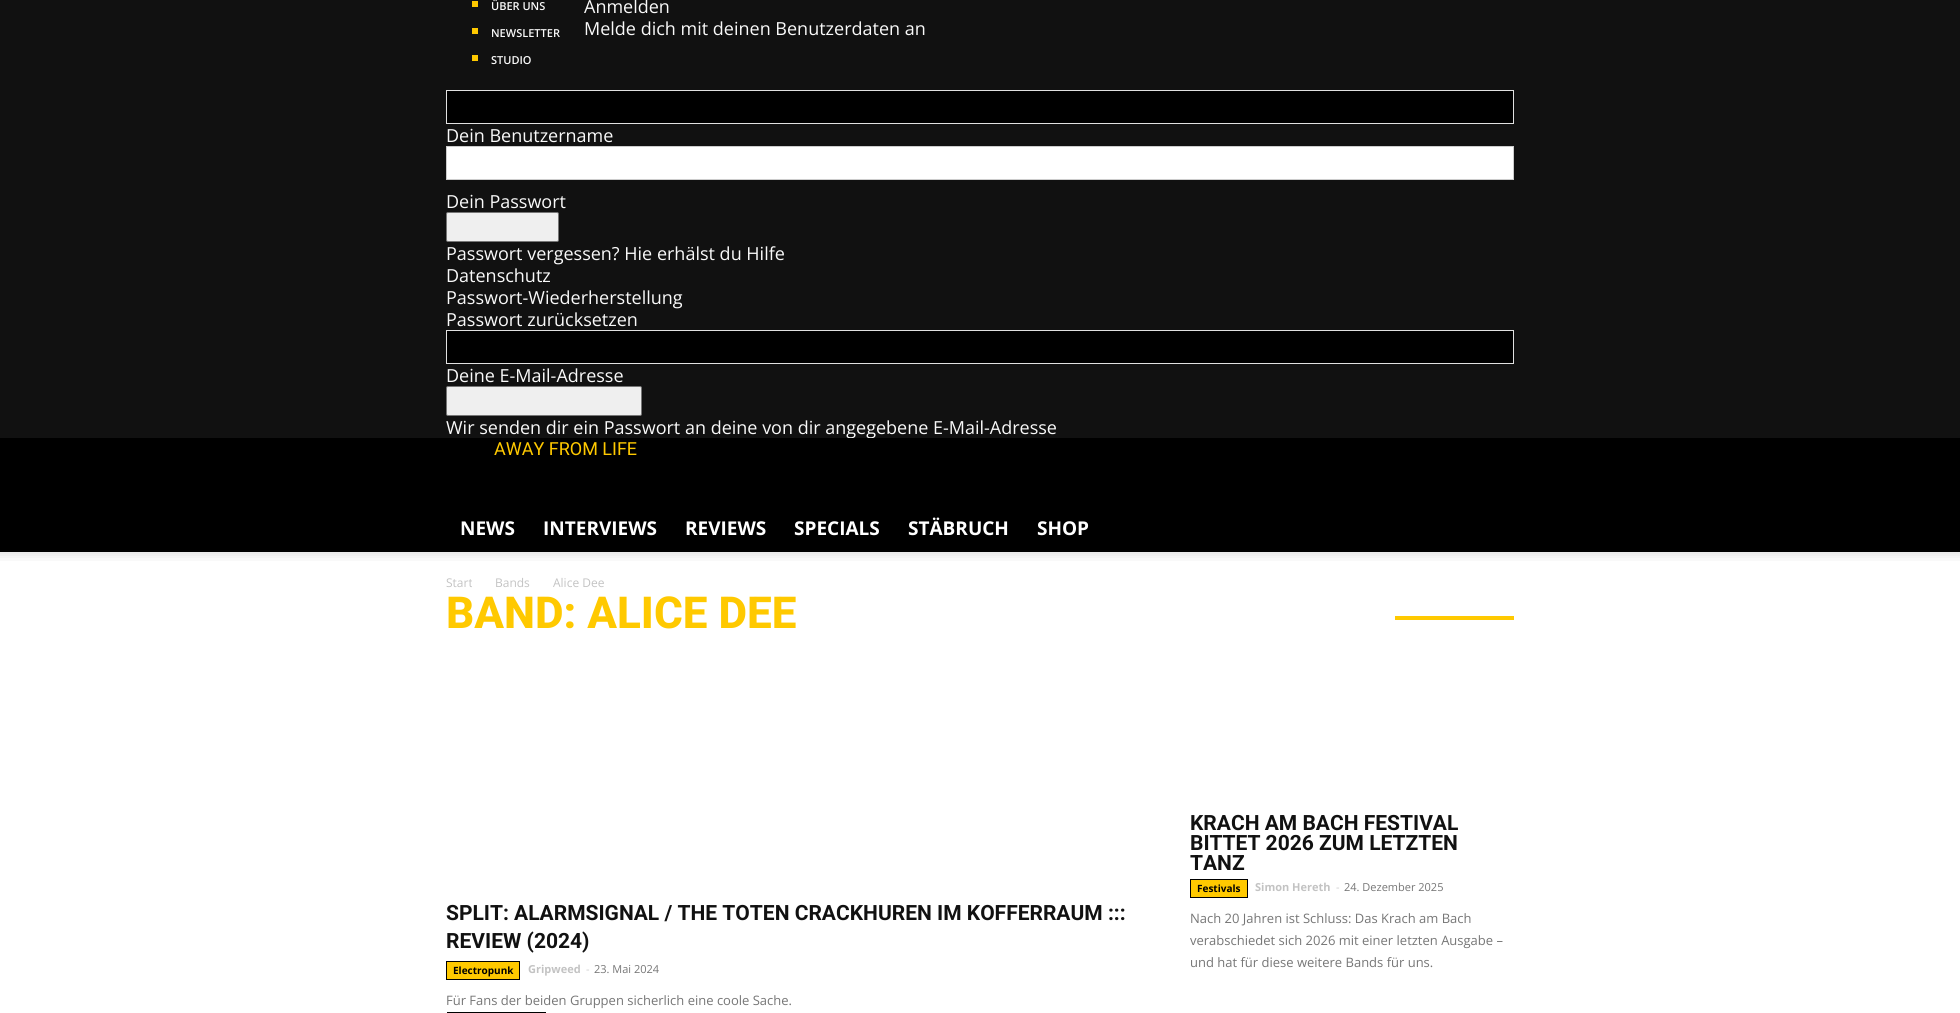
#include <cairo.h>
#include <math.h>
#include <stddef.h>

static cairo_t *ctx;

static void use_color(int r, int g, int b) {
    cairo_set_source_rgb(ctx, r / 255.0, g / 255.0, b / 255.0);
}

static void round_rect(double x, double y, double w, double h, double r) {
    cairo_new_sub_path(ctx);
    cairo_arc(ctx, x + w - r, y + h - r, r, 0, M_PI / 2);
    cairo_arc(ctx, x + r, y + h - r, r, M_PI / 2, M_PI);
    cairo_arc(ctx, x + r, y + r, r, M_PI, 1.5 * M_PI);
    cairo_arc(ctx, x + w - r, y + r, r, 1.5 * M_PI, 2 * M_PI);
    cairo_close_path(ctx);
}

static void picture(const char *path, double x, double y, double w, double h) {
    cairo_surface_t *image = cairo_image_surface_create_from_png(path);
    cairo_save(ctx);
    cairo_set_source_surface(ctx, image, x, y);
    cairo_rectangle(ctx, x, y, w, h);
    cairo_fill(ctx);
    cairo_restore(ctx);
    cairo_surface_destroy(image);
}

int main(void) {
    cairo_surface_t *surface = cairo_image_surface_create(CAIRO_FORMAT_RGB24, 1960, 1013);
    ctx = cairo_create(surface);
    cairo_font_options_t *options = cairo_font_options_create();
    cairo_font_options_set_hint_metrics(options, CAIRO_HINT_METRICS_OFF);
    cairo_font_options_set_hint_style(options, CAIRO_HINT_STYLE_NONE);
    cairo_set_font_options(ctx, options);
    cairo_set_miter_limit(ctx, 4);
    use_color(255, 255, 255);
    cairo_paint(ctx);
    use_color(17, 17, 17);
    cairo_rectangle(ctx, 0, 0, 1960, 438);
    cairo_fill(ctx);
    cairo_select_font_face(ctx, "Open Sans", CAIRO_FONT_SLANT_NORMAL, CAIRO_FONT_WEIGHT_NORMAL);
    cairo_set_font_size(ctx, 18);
    use_color(249, 249, 249);
    cairo_move_to(ctx, 584, 13);
    cairo_show_text(ctx, "Anmelden");
    cairo_move_to(ctx, 584, 35);
    cairo_show_text(ctx, "Melde dich mit deinen Benutzerdaten an");
    use_color(0, 0, 0);
    cairo_rectangle(ctx, 446.5, 90.5, 1067, 33);
    cairo_fill_preserve(ctx);
    use_color(225, 225, 225);
    cairo_set_line_width(ctx, 1);
    cairo_stroke(ctx);
    use_color(249, 249, 249);
    cairo_move_to(ctx, 446, 142);
    cairo_show_text(ctx, "Dein Benutzername");
    use_color(255, 255, 255);
    cairo_rectangle(ctx, 446.5, 146.5, 1067, 33);
    cairo_fill_preserve(ctx);
    use_color(204, 204, 204);
    cairo_stroke(ctx);
    use_color(249, 249, 249);
    cairo_move_to(ctx, 446, 208);
    cairo_show_text(ctx, "Dein Passwort");
    use_color(239, 239, 239);
    round_rect(446.5, 212.5, 112, 29, 1.5);
    cairo_fill_preserve(ctx);
    use_color(118, 118, 118);
    cairo_stroke(ctx);
    use_color(249, 249, 249);
    cairo_move_to(ctx, 446, 260);
    cairo_show_text(ctx, "Passwort vergessen? Hie erhälst du Hilfe");
    cairo_move_to(ctx, 446, 282);
    cairo_show_text(ctx, "Datenschutz");
    cairo_move_to(ctx, 446, 304);
    cairo_show_text(ctx, "Passwort-Wiederherstellung");
    cairo_move_to(ctx, 446, 326);
    cairo_show_text(ctx, "Passwort zurücksetzen");
    use_color(0, 0, 0);
    cairo_rectangle(ctx, 446.5, 330.5, 1067, 33);
    cairo_fill_preserve(ctx);
    use_color(225, 225, 225);
    cairo_stroke(ctx);
    use_color(249, 249, 249);
    cairo_move_to(ctx, 446, 382);
    cairo_show_text(ctx, "Deine E-Mail-Adresse");
    use_color(239, 239, 239);
    round_rect(446.5, 386.5, 195, 29, 1.5);
    cairo_fill_preserve(ctx);
    use_color(118, 118, 118);
    cairo_stroke(ctx);
    use_color(249, 249, 249);
    cairo_move_to(ctx, 446, 434);
    cairo_show_text(ctx, "Wir senden dir ein Passwort an deine von dir angegebene E-Mail-Adresse");
    use_color(255, 201, 0);
    cairo_rectangle(ctx, 472, 1, 6, 6);
    cairo_fill(ctx);
    cairo_select_font_face(ctx, "Open Sans SemiBold", CAIRO_FONT_SLANT_NORMAL, CAIRO_FONT_WEIGHT_NORMAL);
    cairo_set_font_size(ctx, 11);
    use_color(249, 249, 249);
    cairo_move_to(ctx, 491, 10);
    cairo_show_text(ctx, "ÜBER UNS");
    use_color(255, 201, 0);
    cairo_rectangle(ctx, 472, 28, 6, 6);
    cairo_fill(ctx);
    use_color(249, 249, 249);
    cairo_move_to(ctx, 491, 37);
    cairo_show_text(ctx, "NEWSLETTER");
    use_color(255, 201, 0);
    cairo_rectangle(ctx, 472, 55, 6, 6);
    cairo_fill(ctx);
    use_color(249, 249, 249);
    cairo_move_to(ctx, 491, 64);
    cairo_show_text(ctx, "STUDIO");
    use_color(0, 0, 0);
    cairo_rectangle(ctx, 0, 438, 1960, 114);
    cairo_fill(ctx);
    cairo_select_font_face(ctx, "Roboto", CAIRO_FONT_SLANT_NORMAL, CAIRO_FONT_WEIGHT_NORMAL);
    cairo_set_font_size(ctx, 18);
    use_color(255, 201, 0);
    cairo_move_to(ctx, 494, 455);
    cairo_show_text(ctx, "AWAY FROM LIFE");
    cairo_select_font_face(ctx, "Open Sans", CAIRO_FONT_SLANT_NORMAL, CAIRO_FONT_WEIGHT_BOLD);
    cairo_set_font_size(ctx, 19);
    use_color(255, 255, 255);
    cairo_move_to(ctx, 460, 535);
    cairo_show_text(ctx, "NEWS");
    cairo_move_to(ctx, 543, 535);
    cairo_show_text(ctx, "INTERVIEWS");
    cairo_move_to(ctx, 685, 535);
    cairo_show_text(ctx, "REVIEWS");
    cairo_move_to(ctx, 794, 535);
    cairo_show_text(ctx, "SPECIALS");
    cairo_move_to(ctx, 908, 535);
    cairo_show_text(ctx, "STÄBRUCH");
    cairo_move_to(ctx, 1037, 535);
    cairo_show_text(ctx, "SHOP");
    picture("img1.png", 0, 552, 1960, 9);
    cairo_select_font_face(ctx, "Open Sans", CAIRO_FONT_SLANT_NORMAL, CAIRO_FONT_WEIGHT_NORMAL);
    cairo_set_font_size(ctx, 12);
    use_color(195, 195, 195);
    cairo_move_to(ctx, 446, 587);
    cairo_show_text(ctx, "Start");
    cairo_move_to(ctx, 495, 587);
    cairo_show_text(ctx, "Bands");
    cairo_move_to(ctx, 553, 587);
    cairo_show_text(ctx, "Alice Dee");
    cairo_select_font_face(ctx, "Roboto ExtraBold", CAIRO_FONT_SLANT_NORMAL, CAIRO_FONT_WEIGHT_NORMAL);
    cairo_set_font_size(ctx, 44);
    use_color(255, 201, 0);
    cairo_move_to(ctx, 446, 628);
    cairo_show_text(ctx, "BAND: ALICE DEE");
    cairo_select_font_face(ctx, "Roboto", CAIRO_FONT_SLANT_NORMAL, CAIRO_FONT_WEIGHT_BOLD);
    cairo_set_font_size(ctx, 21);
    use_color(17, 17, 17);
    cairo_move_to(ctx, 446, 920);
    cairo_show_text(ctx, "SPLIT: ALARMSIGNAL / THE TOTEN CRACKHUREN IM KOFFERRAUM :::");
    cairo_move_to(ctx, 446, 948);
    cairo_show_text(ctx, "REVIEW (2024)");
    use_color(255, 201, 0);
    cairo_rectangle(ctx, 446.5, 961.5, 73, 18);
    cairo_fill_preserve(ctx);
    use_color(0, 0, 0);
    cairo_stroke(ctx);
    cairo_select_font_face(ctx, "Open Sans", CAIRO_FONT_SLANT_NORMAL, CAIRO_FONT_WEIGHT_BOLD);
    cairo_set_font_size(ctx, 10);
    cairo_move_to(ctx, 453, 974);
    cairo_show_text(ctx, "Electropunk");
    cairo_set_font_size(ctx, 11);
    use_color(195, 195, 195);
    cairo_move_to(ctx, 528, 973);
    cairo_show_text(ctx, "Gripweed");
    cairo_select_font_face(ctx, "Open Sans", CAIRO_FONT_SLANT_NORMAL, CAIRO_FONT_WEIGHT_NORMAL);
    use_color(204, 204, 204);
    cairo_move_to(ctx, 586, 973);
    cairo_show_text(ctx, "-");
    use_color(118, 118, 118);
    cairo_move_to(ctx, 594, 973);
    cairo_show_text(ctx, "23. Mai 2024");
    cairo_set_font_size(ctx, 13);
    cairo_move_to(ctx, 446, 1005);
    cairo_show_text(ctx, "Für Fans der beiden Gruppen sicherlich eine coole Sache.");
    use_color(0, 0, 0);
    cairo_rectangle(ctx, 446.5, 1011.5, 100, 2);
    cairo_fill_preserve(ctx);
    use_color(255, 255, 255);
    cairo_stroke(ctx);
    use_color(255, 201, 0);
    cairo_rectangle(ctx, 1395, 616, 119, 4);
    cairo_fill(ctx);
    cairo_select_font_face(ctx, "Roboto", CAIRO_FONT_SLANT_NORMAL, CAIRO_FONT_WEIGHT_BOLD);
    cairo_set_font_size(ctx, 21);
    use_color(17, 17, 17);
    cairo_move_to(ctx, 1190, 830);
    cairo_show_text(ctx, "KRACH AM BACH FESTIVAL");
    cairo_move_to(ctx, 1190, 850);
    cairo_show_text(ctx, "BITTET 2026 ZUM LETZTEN");
    cairo_move_to(ctx, 1190, 870);
    cairo_show_text(ctx, "TANZ");
    use_color(255, 201, 0);
    cairo_rectangle(ctx, 1190.5, 879.5, 57, 18);
    cairo_fill_preserve(ctx);
    use_color(0, 0, 0);
    cairo_stroke(ctx);
    cairo_select_font_face(ctx, "Open Sans", CAIRO_FONT_SLANT_NORMAL, CAIRO_FONT_WEIGHT_BOLD);
    cairo_set_font_size(ctx, 10);
    cairo_move_to(ctx, 1197, 892);
    cairo_show_text(ctx, "Festivals");
    cairo_set_font_size(ctx, 11);
    use_color(195, 195, 195);
    cairo_move_to(ctx, 1255, 891);
    cairo_show_text(ctx, "Simon Hereth");
    cairo_select_font_face(ctx, "Open Sans", CAIRO_FONT_SLANT_NORMAL, CAIRO_FONT_WEIGHT_NORMAL);
    use_color(204, 204, 204);
    cairo_move_to(ctx, 1336, 891);
    cairo_show_text(ctx, "-");
    use_color(118, 118, 118);
    cairo_move_to(ctx, 1344, 891);
    cairo_show_text(ctx, "24. Dezember 2025");
    cairo_set_font_size(ctx, 13);
    cairo_move_to(ctx, 1190, 923);
    cairo_show_text(ctx, "Nach 20 Jahren ist Schluss: Das Krach am Bach");
    cairo_move_to(ctx, 1190, 945);
    cairo_show_text(ctx, "verabschiedet sich 2026 mit einer letzten Ausgabe –");
    cairo_move_to(ctx, 1190, 967);
    cairo_show_text(ctx, "und hat für diese weitere Bands für uns.");
    cairo_surface_write_to_png(surface, "result.png");
    cairo_font_options_destroy(options);
    cairo_destroy(ctx);
    cairo_surface_destroy(surface);
    return 0;
}
